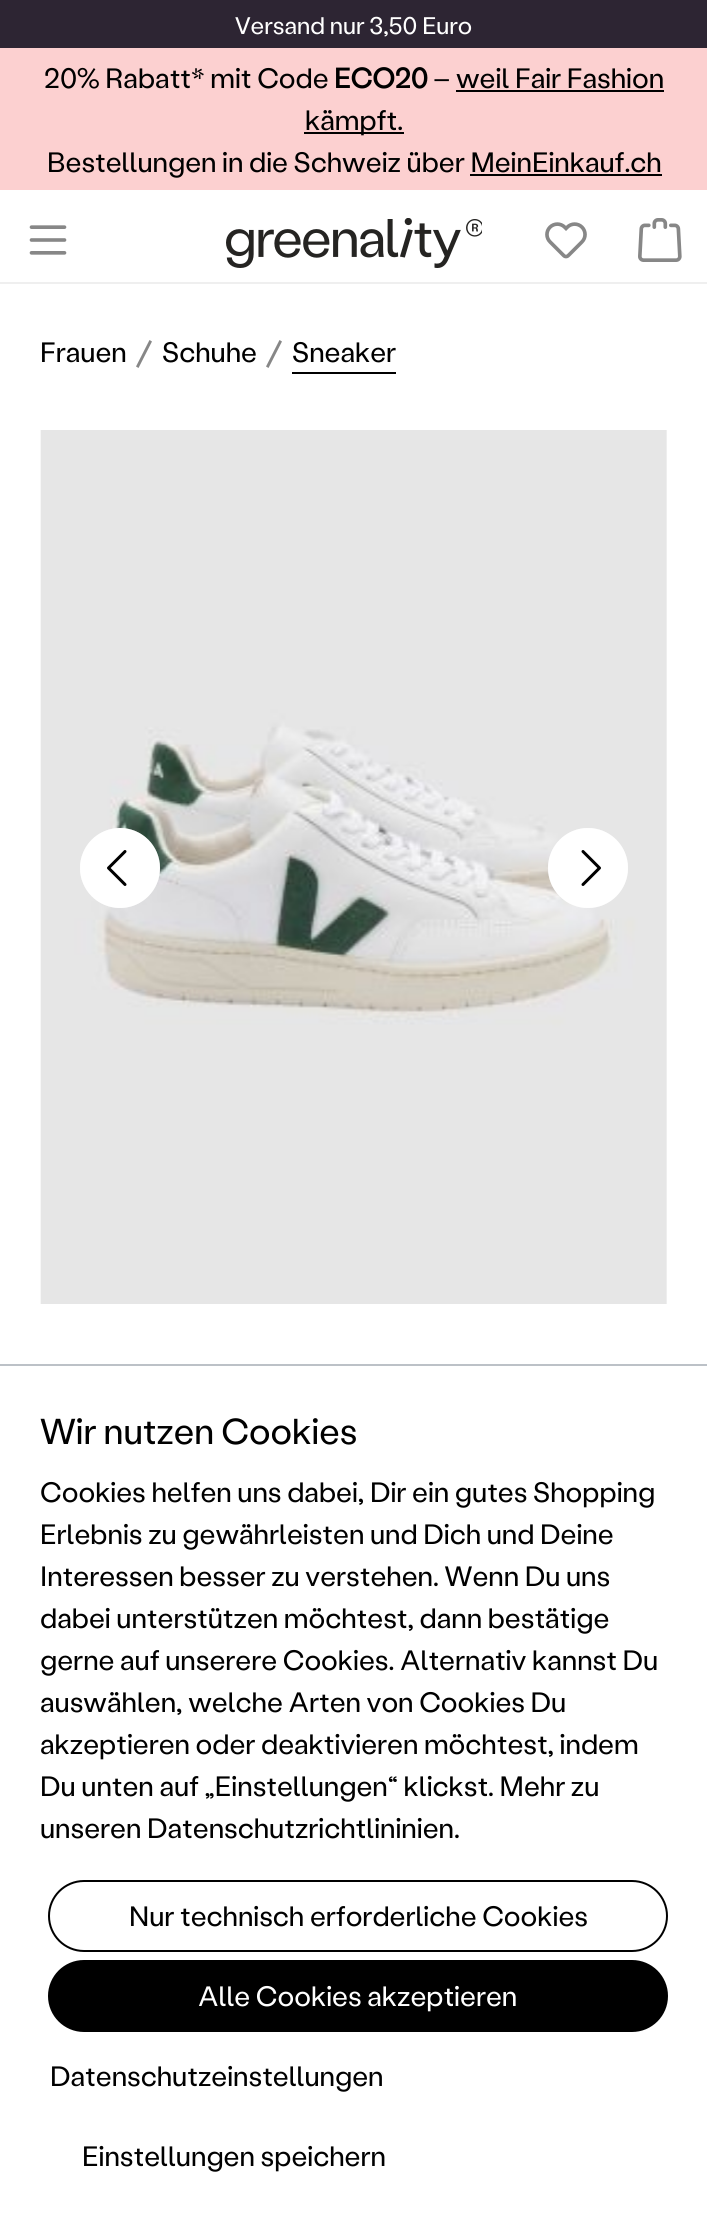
#include <cairo.h>
#include <math.h>
#include <stddef.h>

static cairo_t *ctx;

static void use_color(int r, int g, int b) {
    cairo_set_source_rgb(ctx, r / 255.0, g / 255.0, b / 255.0);
}

static void round_rect(double x, double y, double w, double h, double r) {
    cairo_new_sub_path(ctx);
    cairo_arc(ctx, x + w - r, y + h - r, r, 0, M_PI / 2);
    cairo_arc(ctx, x + r, y + h - r, r, M_PI / 2, M_PI);
    cairo_arc(ctx, x + r, y + r, r, M_PI, 1.5 * M_PI);
    cairo_arc(ctx, x + w - r, y + r, r, 1.5 * M_PI, 2 * M_PI);
    cairo_close_path(ctx);
}

static void picture(const char *path, double x, double y, double w, double h) {
    cairo_surface_t *image = cairo_image_surface_create_from_png(path);
    cairo_save(ctx);
    cairo_set_source_surface(ctx, image, x, y);
    cairo_rectangle(ctx, x, y, w, h);
    cairo_fill(ctx);
    cairo_restore(ctx);
    cairo_surface_destroy(image);
}

int main(void) {
    cairo_surface_t *surface = cairo_image_surface_create(CAIRO_FORMAT_RGB24, 707, 2239);
    ctx = cairo_create(surface);
    cairo_font_options_t *options = cairo_font_options_create();
    cairo_font_options_set_hint_metrics(options, CAIRO_HINT_METRICS_OFF);
    cairo_font_options_set_hint_style(options, CAIRO_HINT_STYLE_NONE);
    cairo_set_font_options(ctx, options);
    cairo_set_miter_limit(ctx, 4);
    use_color(255, 255, 255);
    cairo_paint(ctx);
    use_color(45, 37, 51);
    cairo_rectangle(ctx, 0, 0, 707, 48);
    cairo_fill(ctx);
    cairo_select_font_face(ctx, "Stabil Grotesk", CAIRO_FONT_SLANT_NORMAL, CAIRO_FONT_WEIGHT_NORMAL);
    cairo_set_font_size(ctx, 24);
    use_color(255, 255, 255);
    cairo_move_to(ctx, 235, 34);
    cairo_show_text(ctx, "Versand nur 3,50 Euro");
    use_color(252, 208, 208);
    cairo_rectangle(ctx, 0, 48, 707, 142);
    cairo_fill(ctx);
    cairo_set_font_size(ctx, 28);
    use_color(0, 0, 0);
    cairo_move_to(ctx, 44, 88);
    cairo_show_text(ctx, "20% Rabatt* mit Code");
    cairo_select_font_face(ctx, "Stabil Grotesk", CAIRO_FONT_SLANT_NORMAL, CAIRO_FONT_WEIGHT_BOLD);
    cairo_move_to(ctx, 334, 88);
    cairo_show_text(ctx, "ECO20");
    cairo_select_font_face(ctx, "Stabil Grotesk", CAIRO_FONT_SLANT_NORMAL, CAIRO_FONT_WEIGHT_NORMAL);
    cairo_move_to(ctx, 433, 88);
    cairo_show_text(ctx, "– weil Fair Fashion");
    cairo_rectangle(ctx, 304, 132, 100, 2);
    cairo_fill(ctx);
    cairo_move_to(ctx, 305, 130);
    cairo_show_text(ctx, "kämpft.");
    cairo_rectangle(ctx, 456, 90, 208, 2);
    cairo_fill(ctx);
    cairo_move_to(ctx, 47, 172);
    cairo_show_text(ctx, "Bestellungen in die Schweiz über MeinEinkauf.ch");
    cairo_rectangle(ctx, 470, 174, 192, 2);
    cairo_fill(ctx);
    use_color(239, 239, 239);
    cairo_rectangle(ctx, 0, 282, 707, 2);
    cairo_fill(ctx);
    picture("img1.png", 29, 225, 38, 30);
    picture("img2.png", 226, 218, 256, 50);
    picture("img3.png", 545, 222, 42, 37);
    picture("img4.png", 638, 218, 44, 44);
    use_color(0, 0, 0);
    cairo_move_to(ctx, 40, 362);
    cairo_show_text(ctx, "Frauen");
    use_color(135, 135, 135);
    cairo_new_path(ctx);
    cairo_move_to(ctx, 152, 341.5);
    cairo_line_to(ctx, 138.5, 368);
    cairo_line_to(ctx, 136, 366.5);
    cairo_line_to(ctx, 149.5, 340);
    cairo_close_path(ctx);
    cairo_fill(ctx);
    use_color(0, 0, 0);
    cairo_move_to(ctx, 162, 362);
    cairo_show_text(ctx, "Schuhe");
    use_color(135, 135, 135);
    cairo_new_path(ctx);
    cairo_move_to(ctx, 282, 341.5);
    cairo_line_to(ctx, 268.5, 368);
    cairo_line_to(ctx, 266, 366.5);
    cairo_line_to(ctx, 279.5, 340);
    cairo_close_path(ctx);
    cairo_fill(ctx);
    use_color(0, 0, 0);
    cairo_move_to(ctx, 292, 362);
    cairo_show_text(ctx, "Sneaker");
    cairo_rectangle(ctx, 292, 372, 104, 2);
    cairo_fill(ctx);
    picture("img5.png", 40, 430, 627, 874);
    use_color(255, 255, 255);
    cairo_arc(ctx, 120, 868, 40, 0, 2 * M_PI);
    cairo_fill(ctx);
    cairo_arc(ctx, 120, 868, 39, 0, 2 * M_PI);
    cairo_set_source_rgba(ctx, 1, 1, 1, 0.5);
    cairo_stroke(ctx);
    picture("img6.png", 107, 850, 20, 36);
    use_color(255, 255, 255);
    cairo_arc(ctx, 588, 868, 40, 0, 2 * M_PI);
    cairo_fill(ctx);
    cairo_arc(ctx, 588, 868, 39, 0, 2 * M_PI);
    cairo_set_source_rgba(ctx, 1, 1, 1, 0.5);
    cairo_stroke(ctx);
    picture("img7.png", 581, 850, 20, 36);
    use_color(188, 193, 199);
    cairo_rectangle(ctx, 0, 1364, 707, 2);
    cairo_fill(ctx);
    cairo_set_font_size(ctx, 36);
    use_color(0, 0, 0);
    cairo_move_to(ctx, 40, 1444);
    cairo_show_text(ctx, "Wir nutzen Cookies");
    cairo_set_font_size(ctx, 28);
    cairo_move_to(ctx, 40, 1502);
    cairo_show_text(ctx, "Cookies helfen uns dabei, Dir ein gutes Shopping");
    cairo_move_to(ctx, 40, 1544);
    cairo_show_text(ctx, "Erlebnis zu gewährleisten und Dich und Deine");
    cairo_move_to(ctx, 40, 1586);
    cairo_show_text(ctx, "Interessen besser zu verstehen. Wenn Du uns");
    cairo_move_to(ctx, 40, 1628);
    cairo_show_text(ctx, "dabei unterstützen möchtest, dann bestätige");
    cairo_move_to(ctx, 40, 1670);
    cairo_show_text(ctx, "gerne auf unserere Cookies. Alternativ kannst Du");
    cairo_move_to(ctx, 40, 1712);
    cairo_show_text(ctx, "auswählen, welche Arten von Cookies Du");
    cairo_move_to(ctx, 40, 1754);
    cairo_show_text(ctx, "akzeptieren oder deaktivieren möchtest, indem");
    cairo_move_to(ctx, 40, 1796);
    cairo_show_text(ctx, "Du unten auf „Einstellungen“ klickst. Mehr zu");
    cairo_move_to(ctx, 40, 1838);
    cairo_show_text(ctx, "unseren Datenschutzrichtlininien.");
    round_rect(49, 1881, 618, 70, 35);
    cairo_stroke(ctx);
    cairo_move_to(ctx, 129, 1926);
    cairo_show_text(ctx, "Nur technisch erforderliche Cookies");
    round_rect(49, 1961, 618, 70, 35);
    cairo_fill_preserve(ctx);
    cairo_stroke(ctx);
    use_color(255, 255, 255);
    cairo_move_to(ctx, 198, 2006);
    cairo_show_text(ctx, "Alle Cookies akzeptieren");
    use_color(0, 0, 0);
    cairo_move_to(ctx, 50, 2086);
    cairo_show_text(ctx, "Datenschutzeinstellungen");
    cairo_move_to(ctx, 82, 2166);
    cairo_show_text(ctx, "Einstellungen speichern");
    cairo_surface_write_to_png(surface, "result.png");
    cairo_font_options_destroy(options);
    cairo_destroy(ctx);
    cairo_surface_destroy(surface);
    return 0;
}
